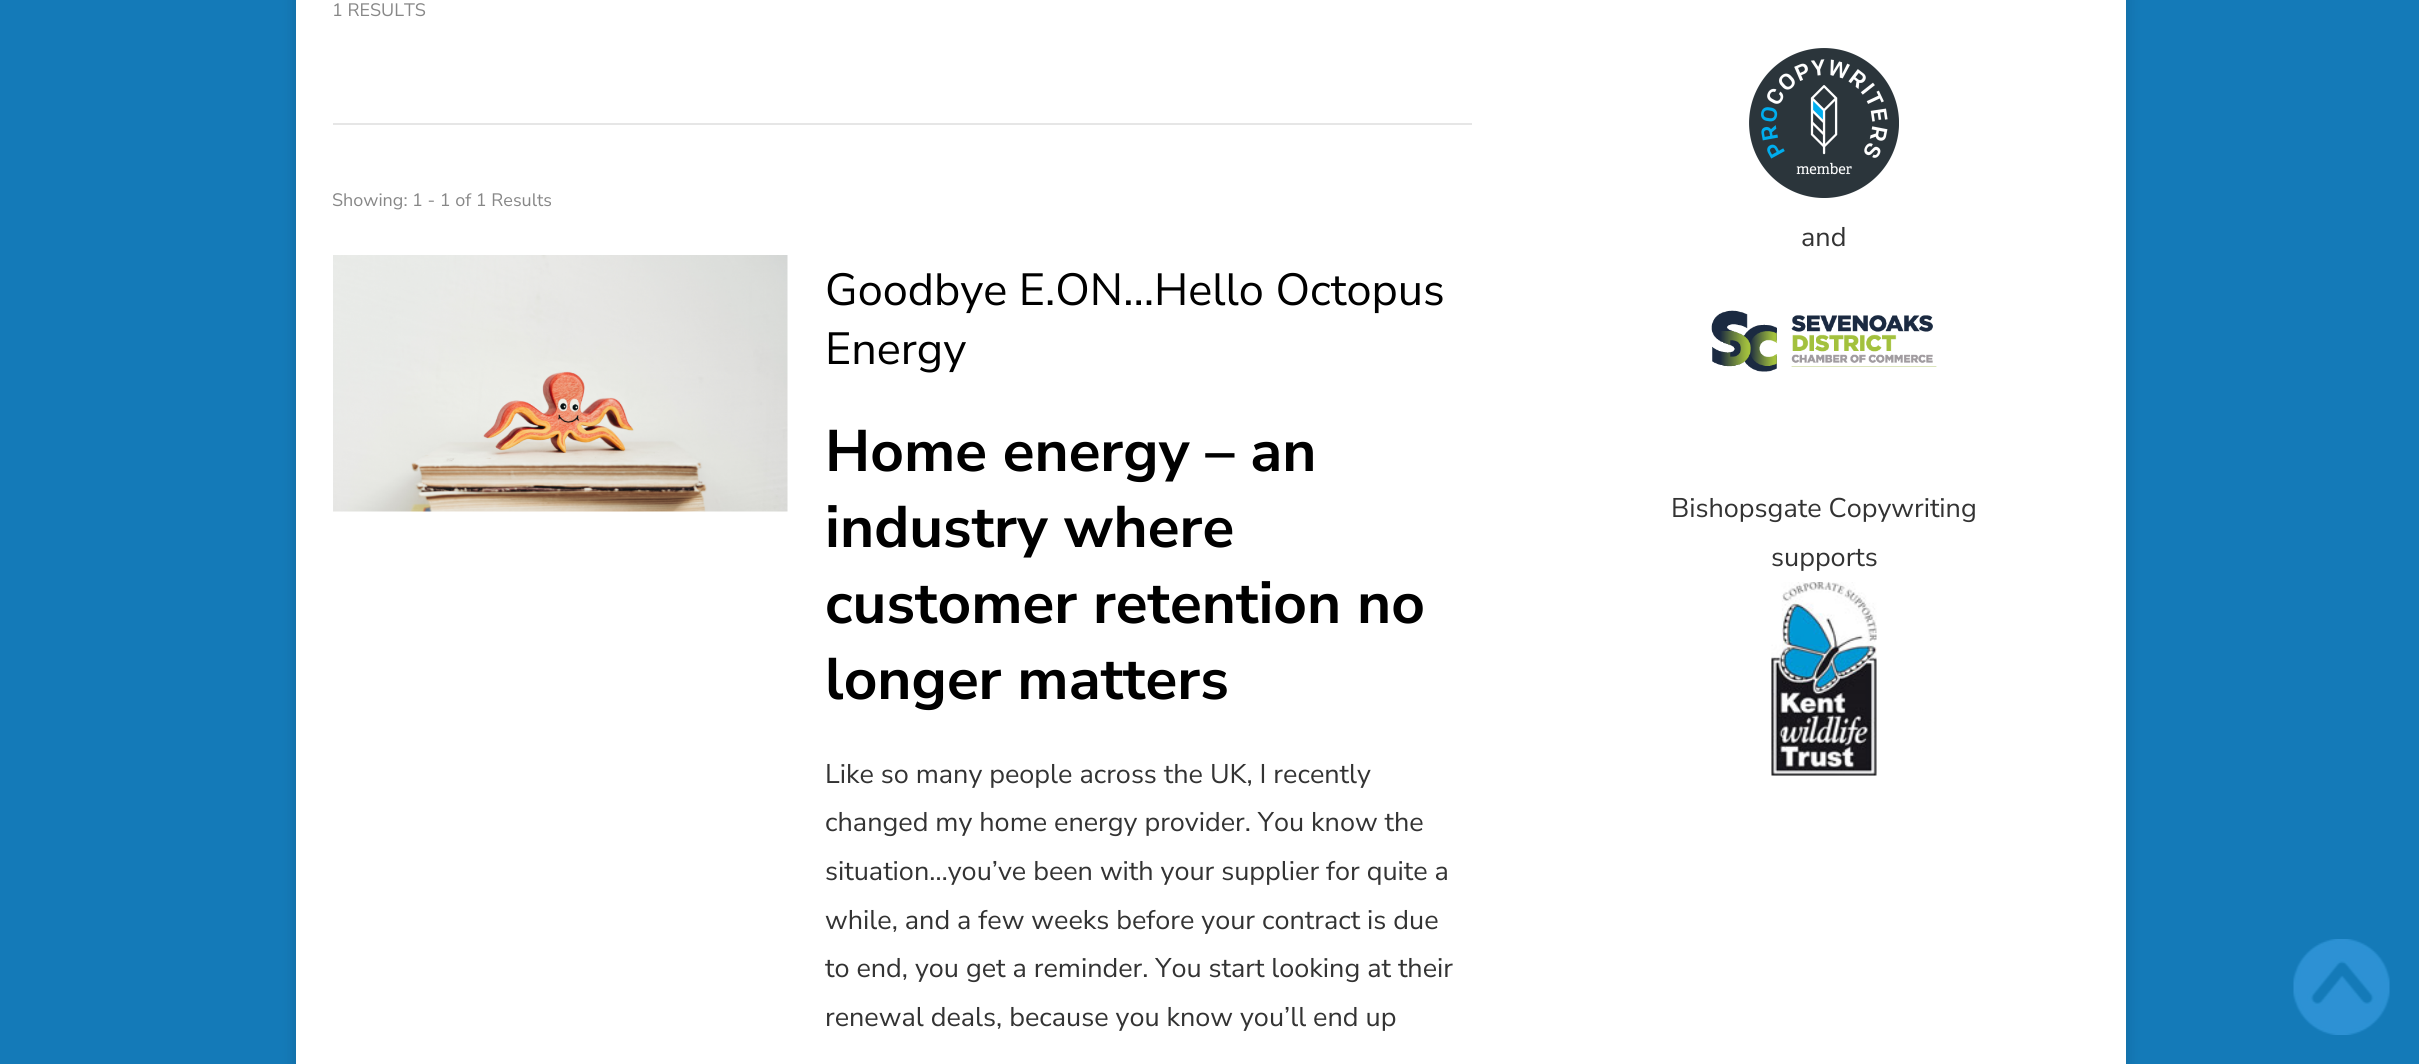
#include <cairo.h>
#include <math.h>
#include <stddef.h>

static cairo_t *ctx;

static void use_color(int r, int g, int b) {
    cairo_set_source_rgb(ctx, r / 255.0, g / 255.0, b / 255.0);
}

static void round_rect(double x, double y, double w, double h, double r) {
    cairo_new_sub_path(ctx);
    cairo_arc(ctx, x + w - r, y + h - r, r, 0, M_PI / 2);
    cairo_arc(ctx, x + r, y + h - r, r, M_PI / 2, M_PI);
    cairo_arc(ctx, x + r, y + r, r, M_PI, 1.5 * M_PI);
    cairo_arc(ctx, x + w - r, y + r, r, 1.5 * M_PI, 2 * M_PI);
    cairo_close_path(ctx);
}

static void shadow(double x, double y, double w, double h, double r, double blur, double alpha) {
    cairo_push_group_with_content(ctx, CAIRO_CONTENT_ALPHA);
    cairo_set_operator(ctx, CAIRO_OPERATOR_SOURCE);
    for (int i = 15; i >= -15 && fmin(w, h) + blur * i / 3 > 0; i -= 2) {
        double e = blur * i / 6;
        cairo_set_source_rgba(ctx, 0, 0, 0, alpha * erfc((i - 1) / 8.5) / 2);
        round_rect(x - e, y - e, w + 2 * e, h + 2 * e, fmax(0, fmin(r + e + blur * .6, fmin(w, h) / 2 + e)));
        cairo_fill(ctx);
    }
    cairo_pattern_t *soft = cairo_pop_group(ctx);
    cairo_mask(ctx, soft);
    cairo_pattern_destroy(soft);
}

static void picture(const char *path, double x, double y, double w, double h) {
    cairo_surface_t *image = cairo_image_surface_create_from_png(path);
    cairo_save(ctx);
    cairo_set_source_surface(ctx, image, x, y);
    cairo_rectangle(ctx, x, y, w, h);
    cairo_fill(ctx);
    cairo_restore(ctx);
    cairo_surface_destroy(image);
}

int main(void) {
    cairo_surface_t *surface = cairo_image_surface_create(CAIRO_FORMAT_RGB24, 2419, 1064);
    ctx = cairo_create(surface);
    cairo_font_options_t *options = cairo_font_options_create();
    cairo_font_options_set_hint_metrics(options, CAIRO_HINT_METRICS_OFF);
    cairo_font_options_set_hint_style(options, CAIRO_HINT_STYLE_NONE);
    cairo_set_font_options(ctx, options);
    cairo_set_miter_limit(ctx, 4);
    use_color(20, 122, 184);
    cairo_paint(ctx);
    use_color(0, 0, 0);
    shadow(296, -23, 1830, 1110, 0, 7.5, 0.15);
    use_color(255, 255, 255);
    cairo_rectangle(ctx, 296, 0, 1830, 1064);
    cairo_fill(ctx);
    cairo_select_font_face(ctx, "Nunito Sans", CAIRO_FONT_SLANT_NORMAL, CAIRO_FONT_WEIGHT_NORMAL);
    cairo_set_font_size(ctx, 18);
    use_color(135, 135, 135);
    cairo_move_to(ctx, 332, 16);
    cairo_show_text(ctx, "1 RESULTS");
    use_color(230, 230, 230);
    cairo_rectangle(ctx, 333, 123, 1139, 2);
    cairo_fill(ctx);
    use_color(135, 135, 135);
    cairo_move_to(ctx, 332, 206);
    cairo_show_text(ctx, "Showing: 1 - 1 of 1 Results");
    picture("img1.png", 333, 255, 455, 257);
    cairo_set_font_size(ctx, 45);
    use_color(0, 0, 0);
    cairo_move_to(ctx, 825, 305);
    cairo_show_text(ctx, "Goodbye E.ON…Hello Octopus");
    cairo_move_to(ctx, 825, 364);
    cairo_show_text(ctx, "Energy");
    cairo_select_font_face(ctx, "Nunito Sans", CAIRO_FONT_SLANT_NORMAL, CAIRO_FONT_WEIGHT_BOLD);
    cairo_set_font_size(ctx, 58.5);
    cairo_move_to(ctx, 825, 471);
    cairo_show_text(ctx, "Home energy – an");
    cairo_move_to(ctx, 825, 547);
    cairo_show_text(ctx, "industry where");
    cairo_move_to(ctx, 825, 623);
    cairo_show_text(ctx, "customer retention no");
    cairo_move_to(ctx, 825, 699);
    cairo_show_text(ctx, "longer matters");
    cairo_select_font_face(ctx, "Nunito Sans", CAIRO_FONT_SLANT_NORMAL, CAIRO_FONT_WEIGHT_NORMAL);
    cairo_set_font_size(ctx, 27);
    use_color(51, 51, 51);
    cairo_move_to(ctx, 825, 783);
    cairo_show_text(ctx, "Like so many people across the UK, I recently");
    cairo_move_to(ctx, 825, 831);
    cairo_show_text(ctx, "changed my home energy provider. You know the");
    cairo_move_to(ctx, 825, 880);
    cairo_show_text(ctx, "situation…you’ve been with your supplier for quite a");
    cairo_move_to(ctx, 825, 929);
    cairo_show_text(ctx, "while, and a few weeks before your contract is due");
    cairo_move_to(ctx, 825, 977);
    cairo_show_text(ctx, "to end, you get a reminder. You start looking at their");
    cairo_move_to(ctx, 825, 1026);
    cairo_show_text(ctx, "renewal deals, because you know you’ll end up");
    picture("img2.png", 1749, 48, 150, 150);
    cairo_move_to(ctx, 1801, 246);
    cairo_show_text(ctx, "and");
    picture("img3.png", 1711, 310, 226, 62);
    cairo_move_to(ctx, 1671, 517);
    cairo_show_text(ctx, "Bishopsgate Copywriting");
    cairo_move_to(ctx, 1771, 566);
    cairo_show_text(ctx, "supports");
    picture("img4.png", 1771, 582, 106, 194);
    picture("img5.png", 2293, 939, 97, 96);
    cairo_surface_write_to_png(surface, "result.png");
    cairo_font_options_destroy(options);
    cairo_destroy(ctx);
    cairo_surface_destroy(surface);
    return 0;
}
